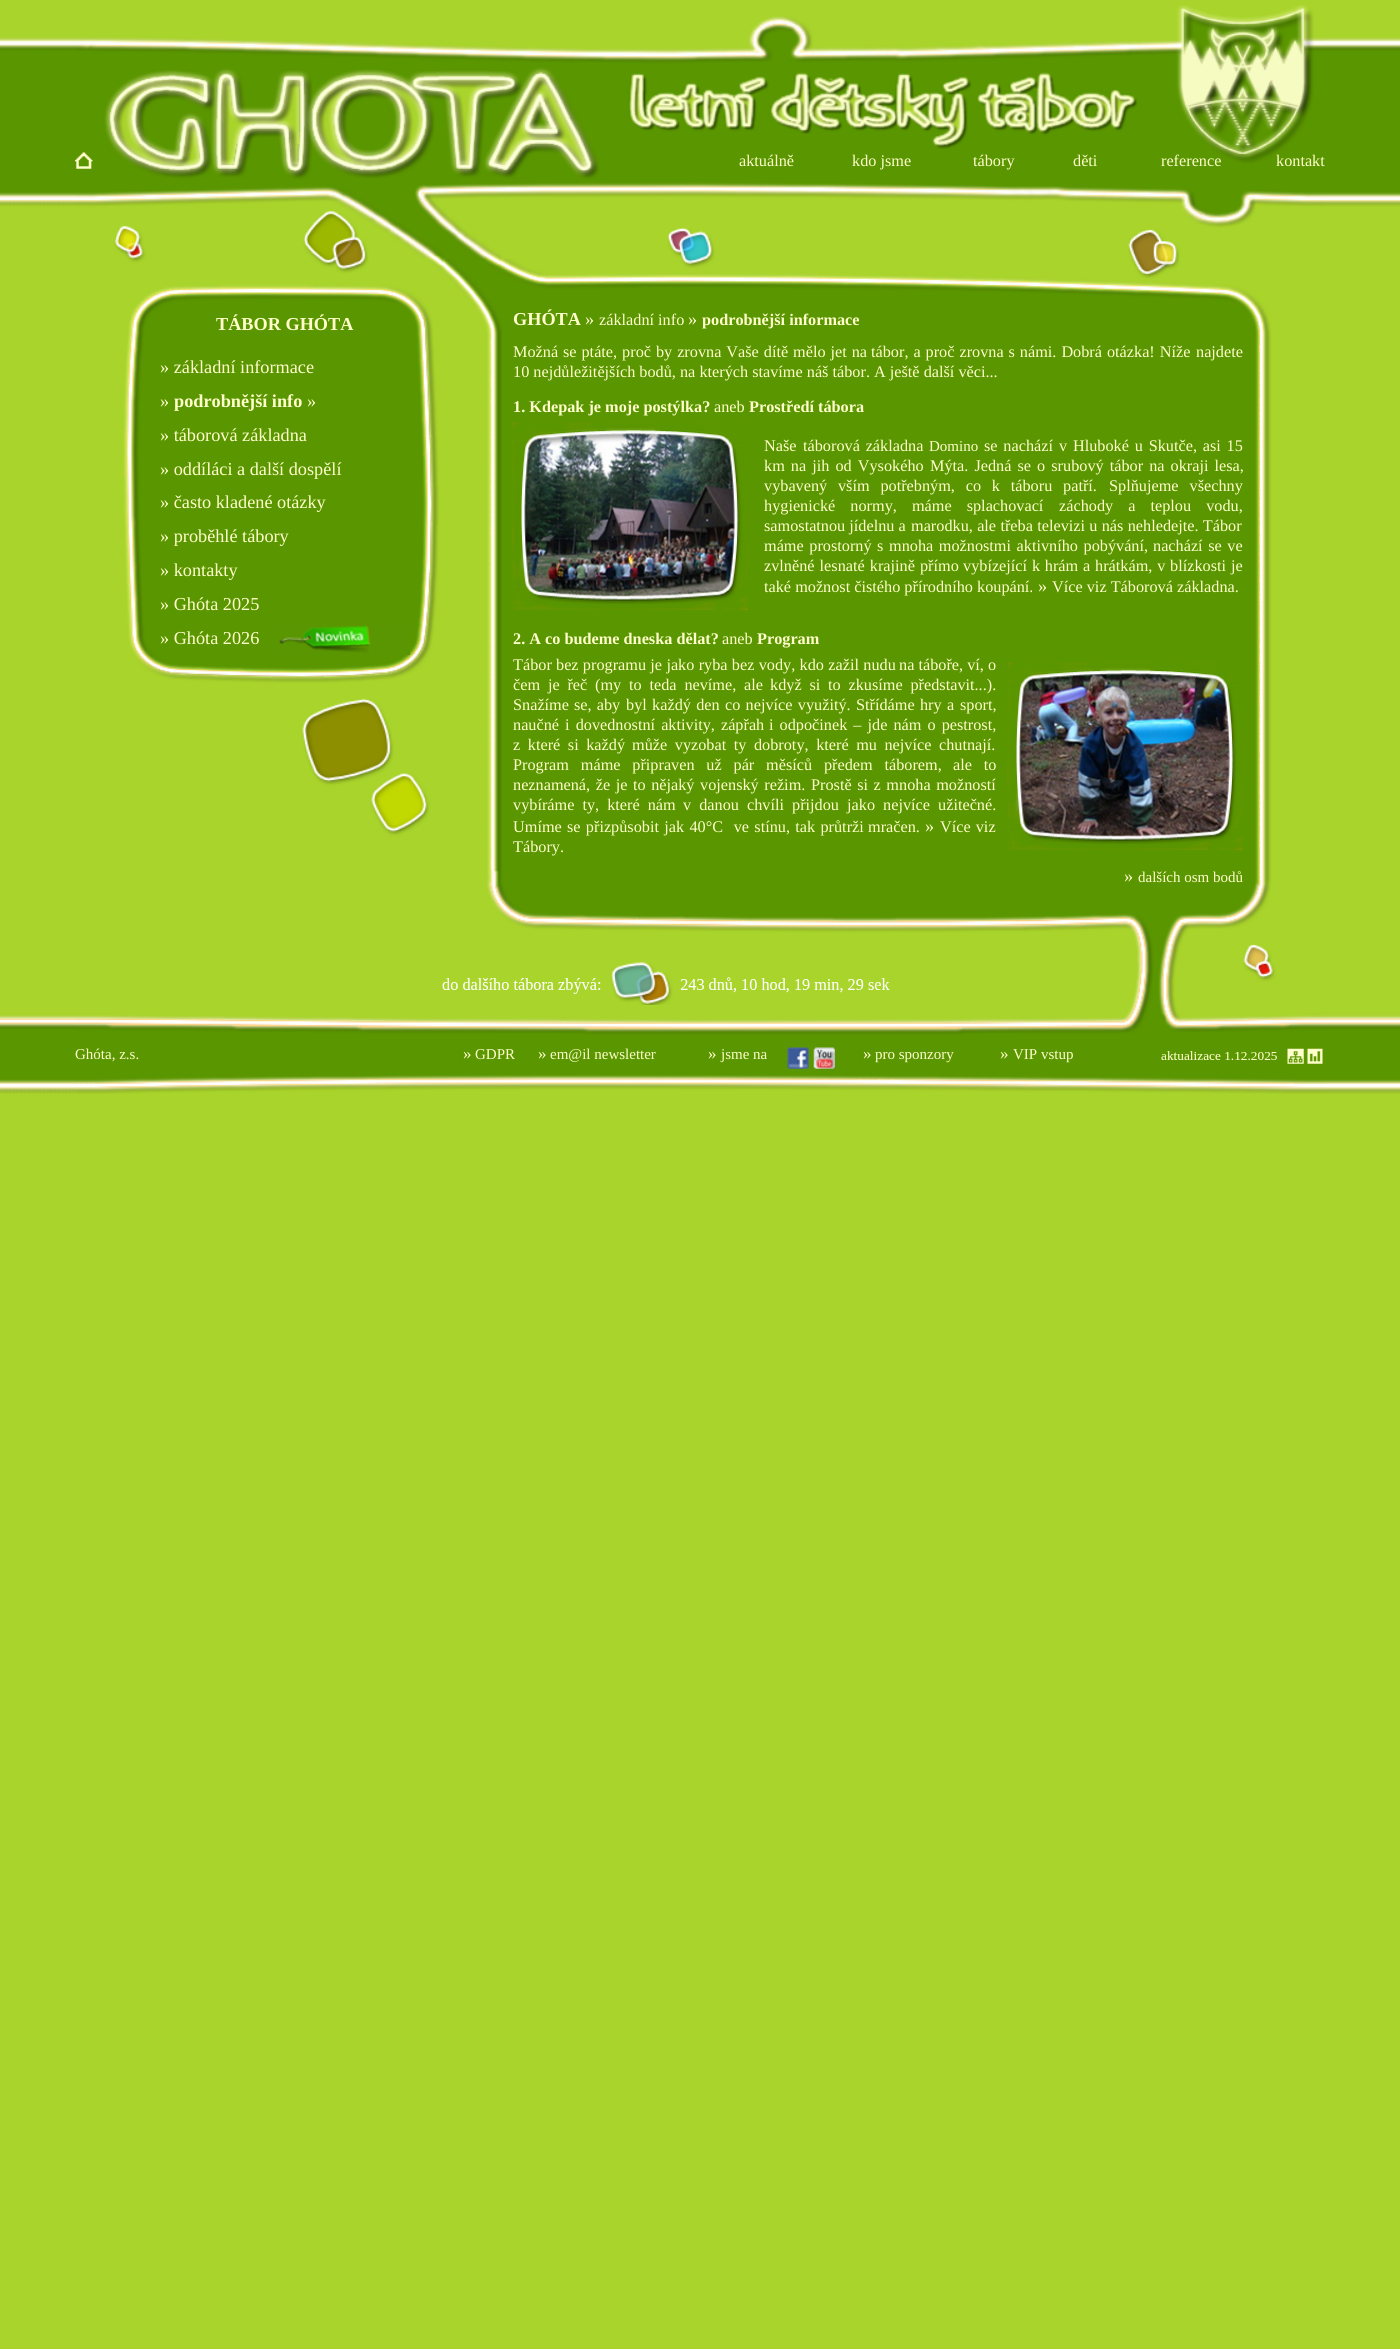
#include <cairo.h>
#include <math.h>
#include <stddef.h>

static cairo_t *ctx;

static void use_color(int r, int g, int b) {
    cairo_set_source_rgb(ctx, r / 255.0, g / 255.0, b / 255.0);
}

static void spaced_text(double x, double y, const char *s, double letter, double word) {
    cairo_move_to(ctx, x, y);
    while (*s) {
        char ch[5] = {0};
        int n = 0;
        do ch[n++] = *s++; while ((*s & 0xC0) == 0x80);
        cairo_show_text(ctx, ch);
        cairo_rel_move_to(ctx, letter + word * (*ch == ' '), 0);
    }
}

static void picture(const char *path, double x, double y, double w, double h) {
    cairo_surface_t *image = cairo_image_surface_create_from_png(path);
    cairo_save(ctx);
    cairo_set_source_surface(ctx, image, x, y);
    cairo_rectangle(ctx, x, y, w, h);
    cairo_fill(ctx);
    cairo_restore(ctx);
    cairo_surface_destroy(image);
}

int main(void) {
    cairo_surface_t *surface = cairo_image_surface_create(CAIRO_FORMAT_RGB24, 1400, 2349);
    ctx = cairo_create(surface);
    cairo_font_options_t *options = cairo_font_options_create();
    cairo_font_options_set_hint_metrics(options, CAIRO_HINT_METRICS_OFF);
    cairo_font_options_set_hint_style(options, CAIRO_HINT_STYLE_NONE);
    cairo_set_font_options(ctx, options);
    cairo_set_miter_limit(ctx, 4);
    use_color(169, 212, 43);
    cairo_paint(ctx);
    picture("img1.png", 0, 37, 75, 1057);
    picture("img2.png", 75, 5, 1250, 1089);
    picture("img3.png", 75, 152, 18, 17);
    cairo_select_font_face(ctx, "Liberation Serif", CAIRO_FONT_SLANT_NORMAL, CAIRO_FONT_WEIGHT_NORMAL);
    cairo_set_font_size(ctx, 16.25);
    use_color(255, 255, 204);
    cairo_move_to(ctx, 739, 166);
    cairo_show_text(ctx, "aktuálně");
    cairo_move_to(ctx, 852, 166);
    cairo_show_text(ctx, "kdo jsme");
    cairo_move_to(ctx, 973, 166);
    cairo_show_text(ctx, "tábory");
    cairo_move_to(ctx, 1073, 166);
    cairo_show_text(ctx, "děti");
    cairo_move_to(ctx, 1161, 166);
    cairo_show_text(ctx, "reference");
    cairo_move_to(ctx, 1276, 166);
    cairo_show_text(ctx, "kontakt");
    cairo_select_font_face(ctx, "Liberation Serif", CAIRO_FONT_SLANT_NORMAL, CAIRO_FONT_WEIGHT_BOLD);
    cairo_set_font_size(ctx, 18.25);
    cairo_move_to(ctx, 216, 330);
    cairo_show_text(ctx, "TÁBOR GHÓTA");
    cairo_move_to(ctx, 513, 325);
    cairo_show_text(ctx, "GHÓTA");
    cairo_select_font_face(ctx, "Liberation Serif", CAIRO_FONT_SLANT_NORMAL, CAIRO_FONT_WEIGHT_NORMAL);
    cairo_move_to(ctx, 585, 325);
    cairo_show_text(ctx, "»");
    cairo_set_font_size(ctx, 16.25);
    cairo_move_to(ctx, 599, 325);
    cairo_show_text(ctx, "základní info");
    cairo_set_font_size(ctx, 18.25);
    cairo_move_to(ctx, 688, 325);
    cairo_show_text(ctx, "»");
    cairo_select_font_face(ctx, "Liberation Serif", CAIRO_FONT_SLANT_NORMAL, CAIRO_FONT_WEIGHT_BOLD);
    cairo_set_font_size(ctx, 16.25);
    cairo_move_to(ctx, 702, 325);
    cairo_show_text(ctx, "podrobnější informace");
    cairo_select_font_face(ctx, "Liberation Serif", CAIRO_FONT_SLANT_NORMAL, CAIRO_FONT_WEIGHT_NORMAL);
    cairo_move_to(ctx, 513, 357);
    cairo_show_text(ctx, "Možná");
    spaced_text(563, 357, "se ptáte, proč by zrovna Vaše dítě mělo jet na", 0, 0.9);
    spaced_text(871, 357, "tábor, a proč zrovna s námi. Dobrá otázka! Níže", 0, 0.9);
    cairo_move_to(ctx, 1196, 357);
    cairo_show_text(ctx, "najdete");
    cairo_move_to(ctx, 513, 377);
    cairo_show_text(ctx, "10 nejdůležitějších bodů, na kterých stavíme náš tábor. A ještě další věci...");
    cairo_select_font_face(ctx, "Liberation Serif", CAIRO_FONT_SLANT_NORMAL, CAIRO_FONT_WEIGHT_BOLD);
    cairo_move_to(ctx, 513, 412);
    cairo_show_text(ctx, "1. Kdepak je moje postýlka?");
    cairo_select_font_face(ctx, "Liberation Serif", CAIRO_FONT_SLANT_NORMAL, CAIRO_FONT_WEIGHT_NORMAL);
    cairo_move_to(ctx, 714, 412);
    cairo_show_text(ctx, "aneb");
    cairo_select_font_face(ctx, "Liberation Serif", CAIRO_FONT_SLANT_NORMAL, CAIRO_FONT_WEIGHT_BOLD);
    cairo_move_to(ctx, 749, 412);
    cairo_show_text(ctx, "Prostředí tábora");
    picture("img4.png", 512, 422, 236, 188);
    cairo_select_font_face(ctx, "Liberation Serif", CAIRO_FONT_SLANT_NORMAL, CAIRO_FONT_WEIGHT_NORMAL);
    cairo_move_to(ctx, 764, 451);
    cairo_show_text(ctx, "Naše");
    spaced_text(803, 451, "táborová základna", 0, 1.75);
    cairo_set_font_size(ctx, 15);
    cairo_move_to(ctx, 929, 451);
    cairo_show_text(ctx, "Domino");
    cairo_set_font_size(ctx, 16.25);
    spaced_text(984, 451, "se nachází", 0, 1.75);
    spaced_text(1059, 451, "v Hluboké u Skutče, asi 15", 0, 1.75);
    spaced_text(764, 471, "km na jih od Vysokého", 0, 2);
    spaced_text(930, 471, "Mýta. Jedná se o srubový tábor na okraji lesa,", 0, 2);
    spaced_text(764, 491, "vybavený vším potřebným, co k táboru patří.", 0, 6.75);
    spaced_text(1109, 491, "Splňujeme všechny", 0, 7);
    spaced_text(764, 511, "hygienické normy, máme splachovací", 0, 11);
    spaced_text(1059, 511, "záchody a teplou vodu,", 0, 11);
    cairo_move_to(ctx, 764, 531);
    cairo_show_text(ctx, "samostatnou jídelnu a");
    spaced_text(911, 531, "marodku, ale třeba televizi u nás nehledejte. Tábor", 0, 0.25);
    spaced_text(764, 551, "máme prostorný s mnoha možnostmi aktivního pobývání,", 0, 1.5);
    spaced_text(1153, 551, "nachází se ve", 0, 1.5);
    spaced_text(764, 571, "zvlněné lesnaté krajině přímo", 0, 1);
    spaced_text(963, 571, "vybízející k hrám a hrátkám, v blízkosti je", 0, 0.75);
    cairo_move_to(ctx, 764, 592);
    cairo_show_text(ctx, "také možnost čistého přírodního koupání.");
    cairo_set_font_size(ctx, 18.25);
    cairo_move_to(ctx, 1038, 592);
    cairo_show_text(ctx, "»");
    cairo_set_font_size(ctx, 16.25);
    cairo_move_to(ctx, 1052, 592);
    cairo_show_text(ctx, "Více viz Táborová základna.");
    cairo_select_font_face(ctx, "Liberation Serif", CAIRO_FONT_SLANT_NORMAL, CAIRO_FONT_WEIGHT_BOLD);
    cairo_move_to(ctx, 513, 644);
    cairo_show_text(ctx, "2. A co budeme dneska dělat?");
    cairo_select_font_face(ctx, "Liberation Serif", CAIRO_FONT_SLANT_NORMAL, CAIRO_FONT_WEIGHT_NORMAL);
    cairo_move_to(ctx, 722, 644);
    cairo_show_text(ctx, "aneb");
    cairo_select_font_face(ctx, "Liberation Serif", CAIRO_FONT_SLANT_NORMAL, CAIRO_FONT_WEIGHT_BOLD);
    cairo_move_to(ctx, 757, 644);
    cairo_show_text(ctx, "Program");
    cairo_select_font_face(ctx, "Liberation Serif", CAIRO_FONT_SLANT_NORMAL, CAIRO_FONT_WEIGHT_NORMAL);
    cairo_move_to(ctx, 513, 670);
    cairo_show_text(ctx, "Tábor");
    spaced_text(556, 670, "bez programu je jako ryba bez vody, kdo zažil nudu", 0, 0.25);
    cairo_move_to(ctx, 899, 670);
    cairo_show_text(ctx, "na táboře, ví, o");
    spaced_text(513, 690, "čem je řeč (my to teda nevíme, ale", 0, 3.75);
    spaced_text(770, 690, "když si to zkusíme představit...).", 0, 3.75);
    spaced_text(513, 710, "Snažíme se, aby", 0, 1);
    spaced_text(626, 710, "byl každý den co nejvíce využitý. Střídáme hry a", 0, 1.25);
    cairo_move_to(ctx, 960, 710);
    cairo_show_text(ctx, "sport,");
    spaced_text(513, 730, "naučné i dovednostní aktivity, zápřah", 0, 2);
    spaced_text(769, 730, "i odpočinek – jde nám o pestrost,", 0, 2);
    spaced_text(513, 750, "z které si každý", 0, 3.5);
    spaced_text(632, 750, "může vyzobat ty dobroty, které mu nejvíce chutnají.", 0, 3.5);
    spaced_text(513, 770, "Program máme připraven už pár měsíců předem táborem,", 0, 7.75);
    spaced_text(953, 770, "ale to", 0, 7.75);
    spaced_text(513, 790, "neznamená, že je to nějaký vojenský režim.", 0, 1.5);
    spaced_text(811, 790, "Prostě si z mnoha možností", 0, 1.5);
    spaced_text(513, 810, "vybíráme ty, které nám", 0, 4);
    spaced_text(683, 810, "v danou chvíli přijdou jako nejvíce užitečné.", 0, 4);
    cairo_move_to(ctx, 513, 832);
    cairo_show_text(ctx, "Umíme");
    spaced_text(567, 832, "se přizpůsobit jak 40°C  ve stínu, tak průtrži", 0, 1.25);
    cairo_move_to(ctx, 868, 832);
    cairo_show_text(ctx, "mračen.");
    cairo_set_font_size(ctx, 18.25);
    cairo_move_to(ctx, 925, 832);
    cairo_show_text(ctx, "»");
    cairo_set_font_size(ctx, 16.25);
    spaced_text(940, 832, "Více viz", 0, 1);
    cairo_move_to(ctx, 513, 852);
    cairo_show_text(ctx, "Tábory.");
    picture("img5.png", 1007, 662, 236, 188);
    cairo_set_font_size(ctx, 18.25);
    cairo_move_to(ctx, 1124, 882);
    cairo_show_text(ctx, "»");
    cairo_set_font_size(ctx, 15);
    cairo_move_to(ctx, 1138, 882);
    cairo_show_text(ctx, "dalších osm bodů");
    cairo_set_font_size(ctx, 18.25);
    cairo_move_to(ctx, 160, 373);
    cairo_show_text(ctx, "» základní informace");
    cairo_move_to(ctx, 160, 407);
    cairo_show_text(ctx, "»");
    cairo_select_font_face(ctx, "Liberation Serif", CAIRO_FONT_SLANT_NORMAL, CAIRO_FONT_WEIGHT_BOLD);
    cairo_move_to(ctx, 174, 407);
    cairo_show_text(ctx, "podrobnější info");
    cairo_select_font_face(ctx, "Liberation Serif", CAIRO_FONT_SLANT_NORMAL, CAIRO_FONT_WEIGHT_NORMAL);
    cairo_move_to(ctx, 307, 407);
    cairo_show_text(ctx, "»");
    cairo_move_to(ctx, 160, 441);
    cairo_show_text(ctx, "» táborová základna");
    cairo_move_to(ctx, 160, 475);
    cairo_show_text(ctx, "» oddíláci a další dospělí");
    cairo_move_to(ctx, 160, 508);
    cairo_show_text(ctx, "» často kladené otázky");
    cairo_move_to(ctx, 160, 542);
    cairo_show_text(ctx, "» proběhlé tábory");
    cairo_move_to(ctx, 160, 576);
    cairo_show_text(ctx, "» kontakty");
    cairo_move_to(ctx, 160, 610);
    cairo_show_text(ctx, "» Ghóta 2025");
    picture("img6.png", 279, 626, 131, 29);
    cairo_move_to(ctx, 160, 644);
    cairo_show_text(ctx, "» Ghóta 2026");
    picture("img7.png", 442, 962, 448, 43);
    cairo_set_font_size(ctx, 15);
    cairo_move_to(ctx, 75, 1059);
    cairo_show_text(ctx, "Ghóta, z.s.");
    cairo_set_font_size(ctx, 17);
    cairo_move_to(ctx, 463, 1059);
    cairo_show_text(ctx, "»");
    cairo_set_font_size(ctx, 15);
    cairo_move_to(ctx, 475, 1059);
    cairo_show_text(ctx, "GDPR");
    cairo_set_font_size(ctx, 17);
    cairo_move_to(ctx, 538, 1059);
    cairo_show_text(ctx, "»");
    cairo_set_font_size(ctx, 15);
    cairo_move_to(ctx, 550, 1059);
    cairo_show_text(ctx, "em@il newsletter");
    cairo_set_font_size(ctx, 17);
    cairo_move_to(ctx, 708, 1059);
    cairo_show_text(ctx, "»");
    cairo_set_font_size(ctx, 15);
    cairo_move_to(ctx, 721, 1059);
    cairo_show_text(ctx, "jsme na");
    picture("img8.png", 787, 1047, 22, 22);
    picture("img9.png", 813, 1047, 22, 22);
    cairo_set_font_size(ctx, 17);
    cairo_move_to(ctx, 863, 1059);
    cairo_show_text(ctx, "»");
    cairo_set_font_size(ctx, 15);
    cairo_move_to(ctx, 875, 1059);
    cairo_show_text(ctx, "pro sponzory");
    cairo_set_font_size(ctx, 17);
    cairo_move_to(ctx, 1000, 1059);
    cairo_show_text(ctx, "»");
    cairo_set_font_size(ctx, 15);
    cairo_move_to(ctx, 1013, 1059);
    cairo_show_text(ctx, "VIP vstup");
    picture("img10.png", 1161, 1048, 162, 16);
    picture("img11.png", 1325, 37, 75, 1057);
    cairo_surface_write_to_png(surface, "result.png");
    cairo_font_options_destroy(options);
    cairo_destroy(ctx);
    cairo_surface_destroy(surface);
    return 0;
}
